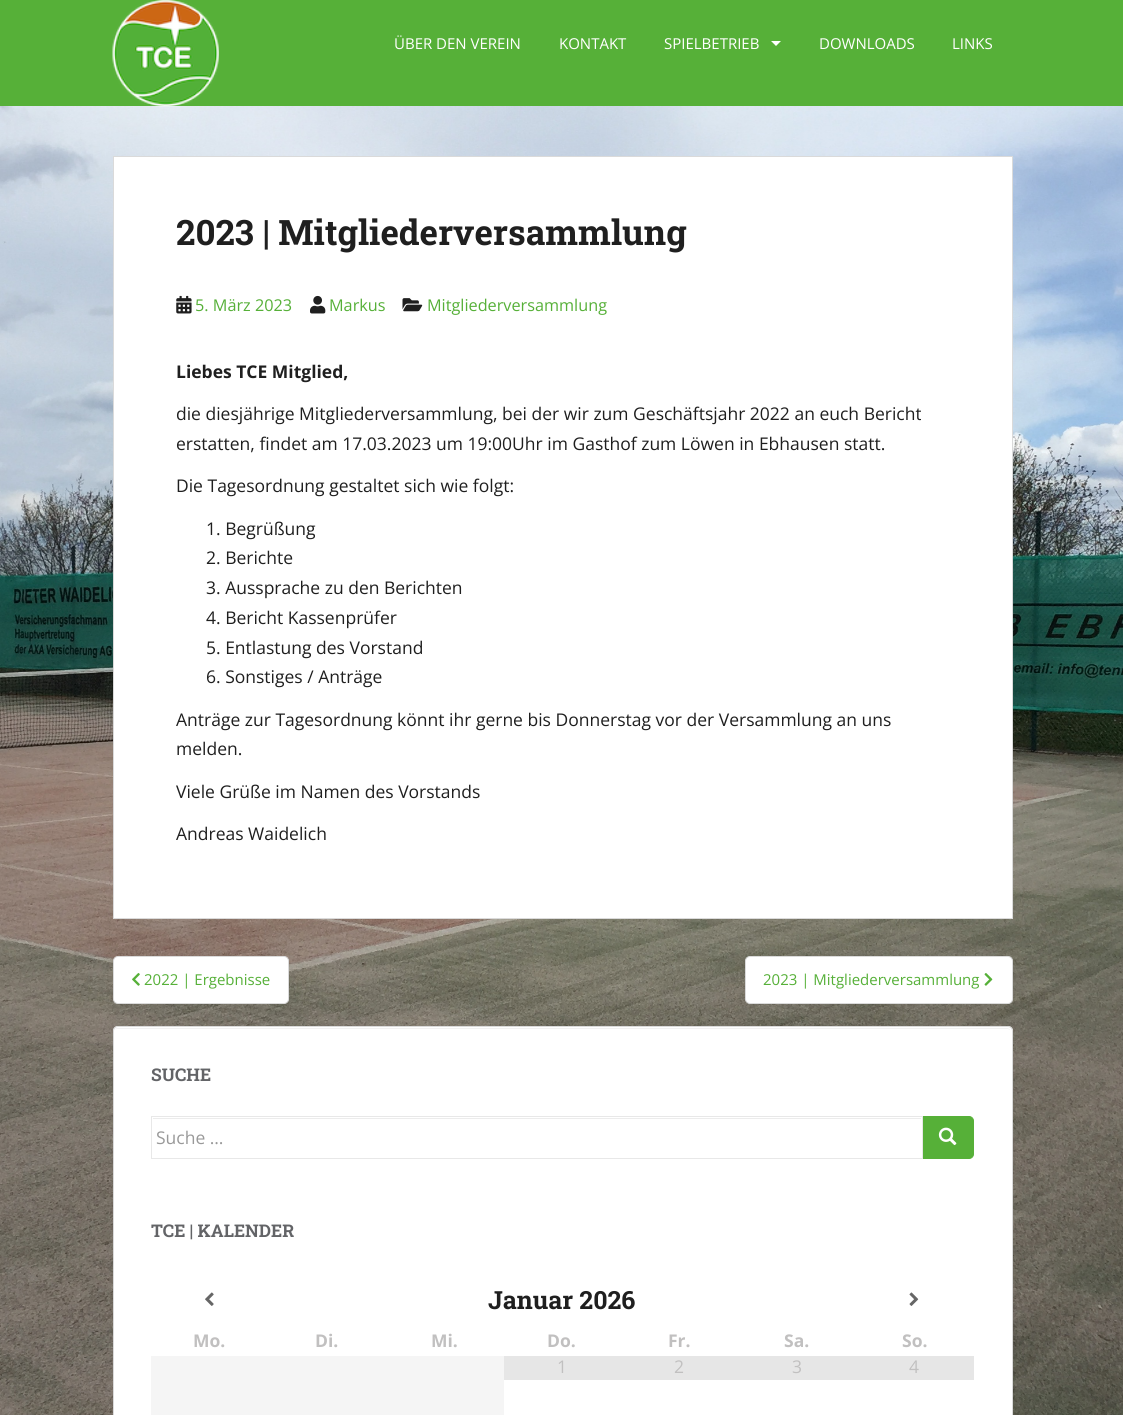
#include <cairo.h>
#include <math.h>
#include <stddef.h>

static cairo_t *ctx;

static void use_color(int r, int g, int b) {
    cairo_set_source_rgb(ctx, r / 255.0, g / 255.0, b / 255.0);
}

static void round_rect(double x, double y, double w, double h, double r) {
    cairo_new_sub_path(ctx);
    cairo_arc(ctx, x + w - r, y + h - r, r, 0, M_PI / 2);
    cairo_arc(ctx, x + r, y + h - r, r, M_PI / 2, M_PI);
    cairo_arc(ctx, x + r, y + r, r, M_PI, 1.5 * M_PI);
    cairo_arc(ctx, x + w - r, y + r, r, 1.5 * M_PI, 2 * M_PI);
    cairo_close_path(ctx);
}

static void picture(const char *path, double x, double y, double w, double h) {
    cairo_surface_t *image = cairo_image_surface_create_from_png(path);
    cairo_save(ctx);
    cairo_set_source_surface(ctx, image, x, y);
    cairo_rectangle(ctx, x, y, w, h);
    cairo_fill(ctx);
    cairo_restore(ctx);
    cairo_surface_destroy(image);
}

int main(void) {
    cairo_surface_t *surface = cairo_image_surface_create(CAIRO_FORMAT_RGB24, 1123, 1415);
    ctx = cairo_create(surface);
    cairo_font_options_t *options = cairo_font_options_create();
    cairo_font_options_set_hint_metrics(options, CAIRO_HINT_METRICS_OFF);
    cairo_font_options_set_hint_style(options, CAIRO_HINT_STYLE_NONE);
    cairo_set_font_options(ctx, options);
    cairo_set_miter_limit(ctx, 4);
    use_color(255, 255, 255);
    cairo_paint(ctx);
    picture("img1.png", 0, 106, 1123, 1309);
    use_color(86, 176, 56);
    cairo_rectangle(ctx, 0, 0, 1123, 106);
    cairo_fill(ctx);
    picture("img2.png", 112, 0, 107, 107);
    cairo_select_font_face(ctx, "Open Sans", CAIRO_FONT_SLANT_NORMAL, CAIRO_FONT_WEIGHT_NORMAL);
    cairo_set_font_size(ctx, 15);
    use_color(255, 255, 255);
    cairo_move_to(ctx, 394, 49);
    cairo_show_text(ctx, "ÜBER DEN VEREIN");
    cairo_move_to(ctx, 559, 49);
    cairo_show_text(ctx, "KONTAKT");
    cairo_move_to(ctx, 664, 49);
    cairo_show_text(ctx, "SPIELBETRIEB");
    cairo_new_path(ctx);
    cairo_move_to(ctx, 771, 41);
    cairo_line_to(ctx, 781, 41);
    cairo_line_to(ctx, 776, 46);
    cairo_close_path(ctx);
    cairo_fill(ctx);
    cairo_move_to(ctx, 819, 49);
    cairo_show_text(ctx, "DOWNLOADS");
    cairo_move_to(ctx, 952, 49);
    cairo_show_text(ctx, "LINKS");
    cairo_rectangle(ctx, 113.5, 156.5, 899, 762);
    cairo_fill_preserve(ctx);
    use_color(218, 218, 218);
    cairo_set_line_width(ctx, 1);
    cairo_stroke(ctx);
    cairo_select_font_face(ctx, "Roboto Slab", CAIRO_FONT_SLANT_NORMAL, CAIRO_FONT_WEIGHT_BOLD);
    cairo_set_font_size(ctx, 35);
    use_color(31, 31, 31);
    cairo_move_to(ctx, 176, 245);
    cairo_show_text(ctx, "2023 | Mitgliederversammlung");
    picture("img3.png", 176, 295, 16, 19);
    cairo_select_font_face(ctx, "Open Sans", CAIRO_FONT_SLANT_NORMAL, CAIRO_FONT_WEIGHT_NORMAL);
    cairo_set_font_size(ctx, 16.25);
    use_color(86, 176, 56);
    cairo_move_to(ctx, 195, 311);
    cairo_show_text(ctx, "5. März 2023");
    picture("img4.png", 310, 295, 16, 19);
    cairo_move_to(ctx, 329, 311);
    cairo_show_text(ctx, "Markus");
    picture("img5.png", 402, 298, 21, 14);
    cairo_move_to(ctx, 427, 311);
    cairo_show_text(ctx, "Mitgliederversammlung");
    cairo_select_font_face(ctx, "Open Sans", CAIRO_FONT_SLANT_NORMAL, CAIRO_FONT_WEIGHT_BOLD);
    cairo_set_font_size(ctx, 17.5);
    use_color(31, 31, 31);
    cairo_move_to(ctx, 176, 378);
    cairo_show_text(ctx, "Liebes TCE Mitglied,");
    cairo_select_font_face(ctx, "Open Sans", CAIRO_FONT_SLANT_NORMAL, CAIRO_FONT_WEIGHT_NORMAL);
    cairo_move_to(ctx, 176, 420);
    cairo_show_text(ctx, "die diesjährige Mitgliederversammlung, bei der wir zum Geschäftsjahr 2022 an euch Bericht");
    cairo_move_to(ctx, 176, 450);
    cairo_show_text(ctx, "erstatten, findet am 17.03.2023 um 19:00Uhr im Gasthof zum Löwen in Ebhausen statt.");
    cairo_move_to(ctx, 176, 492);
    cairo_show_text(ctx, "Die Tagesordnung gestaltet sich wie folgt:");
    cairo_move_to(ctx, 206, 535);
    cairo_show_text(ctx, "1. Begrüßung");
    cairo_move_to(ctx, 206, 564);
    cairo_show_text(ctx, "2. Berichte");
    cairo_move_to(ctx, 206, 594);
    cairo_show_text(ctx, "3. Aussprache zu den Berichten");
    cairo_move_to(ctx, 206, 624);
    cairo_show_text(ctx, "4. Bericht Kassenprüfer");
    cairo_move_to(ctx, 206, 654);
    cairo_show_text(ctx, "5. Entlastung des Vorstand");
    cairo_move_to(ctx, 206, 683);
    cairo_show_text(ctx, "6. Sonstiges / Anträge");
    cairo_move_to(ctx, 176, 726);
    cairo_show_text(ctx, "Anträge zur Tagesordnung könnt ihr gerne bis Donnerstag vor der Versammlung an uns");
    cairo_move_to(ctx, 176, 755);
    cairo_show_text(ctx, "melden.");
    cairo_move_to(ctx, 176, 798);
    cairo_show_text(ctx, "Viele Grüße im Namen des Vorstands");
    cairo_move_to(ctx, 176, 840);
    cairo_show_text(ctx, "Andreas Waidelich");
    use_color(255, 255, 255);
    round_rect(113.5, 956.5, 175, 47, 4.5);
    cairo_fill_preserve(ctx);
    use_color(218, 218, 218);
    cairo_stroke(ctx);
    picture("img6.png", 132, 973, 8, 13);
    cairo_set_font_size(ctx, 15);
    use_color(86, 176, 56);
    cairo_move_to(ctx, 144, 985);
    cairo_show_text(ctx, "2022 | Ergebnisse");
    use_color(255, 255, 255);
    round_rect(745.5, 956.5, 267, 47, 4.5);
    cairo_fill_preserve(ctx);
    use_color(218, 218, 218);
    cairo_stroke(ctx);
    use_color(86, 176, 56);
    cairo_move_to(ctx, 763, 985);
    cairo_show_text(ctx, "2023 | Mitgliederversammlung");
    picture("img7.png", 984, 973, 9, 13);
    use_color(255, 255, 255);
    round_rect(113, 1026, 900, 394, 5);
    cairo_fill(ctx);
    use_color(242, 242, 242);
    cairo_new_path(ctx);
    cairo_move_to(ctx, 118, 1029);
    cairo_line_to(ctx, 1008, 1029);
    cairo_line_to(ctx, 1010, 1030);
    cairo_curve_to(ctx, 1010, 1029, 1008, 1028, 1007, 1028);
    cairo_line_to(ctx, 118, 1028);
    cairo_curve_to(ctx, 116, 1028, 115, 1029, 114, 1030);
    cairo_curve_to(ctx, 115, 1029, 116, 1029, 118, 1029);
    cairo_close_path(ctx);
    cairo_fill(ctx);
    round_rect(113.5, 1026.5, 899, 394, 4.5);
    use_color(218, 218, 218);
    cairo_stroke(ctx);
    cairo_select_font_face(ctx, "Roboto Slab", CAIRO_FONT_SLANT_NORMAL, CAIRO_FONT_WEIGHT_BOLD);
    cairo_set_font_size(ctx, 17.5);
    use_color(99, 100, 103);
    cairo_move_to(ctx, 151, 1081);
    cairo_show_text(ctx, "SUCHE");
    use_color(236, 236, 236);
    cairo_rectangle(ctx, 153, 1118, 768, 1);
    cairo_fill(ctx);
    cairo_rectangle(ctx, 151.5, 1116.5, 771, 42);
    use_color(232, 232, 232);
    cairo_stroke(ctx);
    cairo_select_font_face(ctx, "Open Sans", CAIRO_FONT_SLANT_NORMAL, CAIRO_FONT_WEIGHT_NORMAL);
    use_color(153, 153, 153);
    cairo_move_to(ctx, 156, 1144);
    cairo_show_text(ctx, "Suche …");
    use_color(86, 176, 56);
    cairo_new_path(ctx);
    cairo_move_to(ctx, 923.5, 1116.5);
    cairo_line_to(ctx, 969, 1116.5);
    cairo_curve_to(ctx, 971.5, 1116.5, 973.5, 1118.5, 973.5, 1121);
    cairo_line_to(ctx, 973.5, 1154);
    cairo_curve_to(ctx, 973.5, 1156.5, 971.5, 1158.5, 969, 1158.5);
    cairo_line_to(ctx, 923.5, 1158.5);
    cairo_close_path(ctx);
    cairo_fill_preserve(ctx);
    cairo_stroke(ctx);
    picture("img8.png", 938, 1127, 19, 19);
    cairo_select_font_face(ctx, "Roboto Slab", CAIRO_FONT_SLANT_NORMAL, CAIRO_FONT_WEIGHT_BOLD);
    use_color(99, 100, 103);
    cairo_move_to(ctx, 151, 1237);
    cairo_show_text(ctx, "TCE | KALENDER");
    picture("img9.png", 205, 1292, 9, 14);
    cairo_set_font_size(ctx, 25);
    use_color(31, 31, 31);
    cairo_move_to(ctx, 488, 1309);
    cairo_show_text(ctx, "Januar 2026");
    picture("img10.png", 909, 1292, 10, 14);
    cairo_select_font_face(ctx, "Open Sans", CAIRO_FONT_SLANT_NORMAL, CAIRO_FONT_WEIGHT_BOLD);
    cairo_set_font_size(ctx, 17.5);
    use_color(193, 192, 192);
    cairo_move_to(ctx, 193, 1347);
    cairo_show_text(ctx, "Mo.");
    cairo_move_to(ctx, 315, 1347);
    cairo_show_text(ctx, "Di.");
    cairo_move_to(ctx, 431, 1347);
    cairo_show_text(ctx, "Mi.");
    cairo_move_to(ctx, 547, 1347);
    cairo_show_text(ctx, "Do.");
    cairo_move_to(ctx, 668, 1347);
    cairo_show_text(ctx, "Fr.");
    cairo_move_to(ctx, 784, 1347);
    cairo_show_text(ctx, "Sa.");
    cairo_move_to(ctx, 902, 1347);
    cairo_show_text(ctx, "So.");
    use_color(245, 245, 245);
    cairo_rectangle(ctx, 151, 1356, 353, 59);
    cairo_fill(ctx);
    use_color(230, 230, 230);
    cairo_rectangle(ctx, 504, 1356, 470, 24);
    cairo_fill(ctx);
    cairo_select_font_face(ctx, "Open Sans", CAIRO_FONT_SLANT_NORMAL, CAIRO_FONT_WEIGHT_NORMAL);
    use_color(193, 192, 192);
    cairo_move_to(ctx, 557, 1373);
    cairo_show_text(ctx, "1");
    cairo_move_to(ctx, 674, 1373);
    cairo_show_text(ctx, "2");
    cairo_move_to(ctx, 792, 1373);
    cairo_show_text(ctx, "3");
    cairo_move_to(ctx, 909, 1373);
    cairo_show_text(ctx, "4");
    cairo_surface_write_to_png(surface, "result.png");
    cairo_font_options_destroy(options);
    cairo_destroy(ctx);
    cairo_surface_destroy(surface);
    return 0;
}
